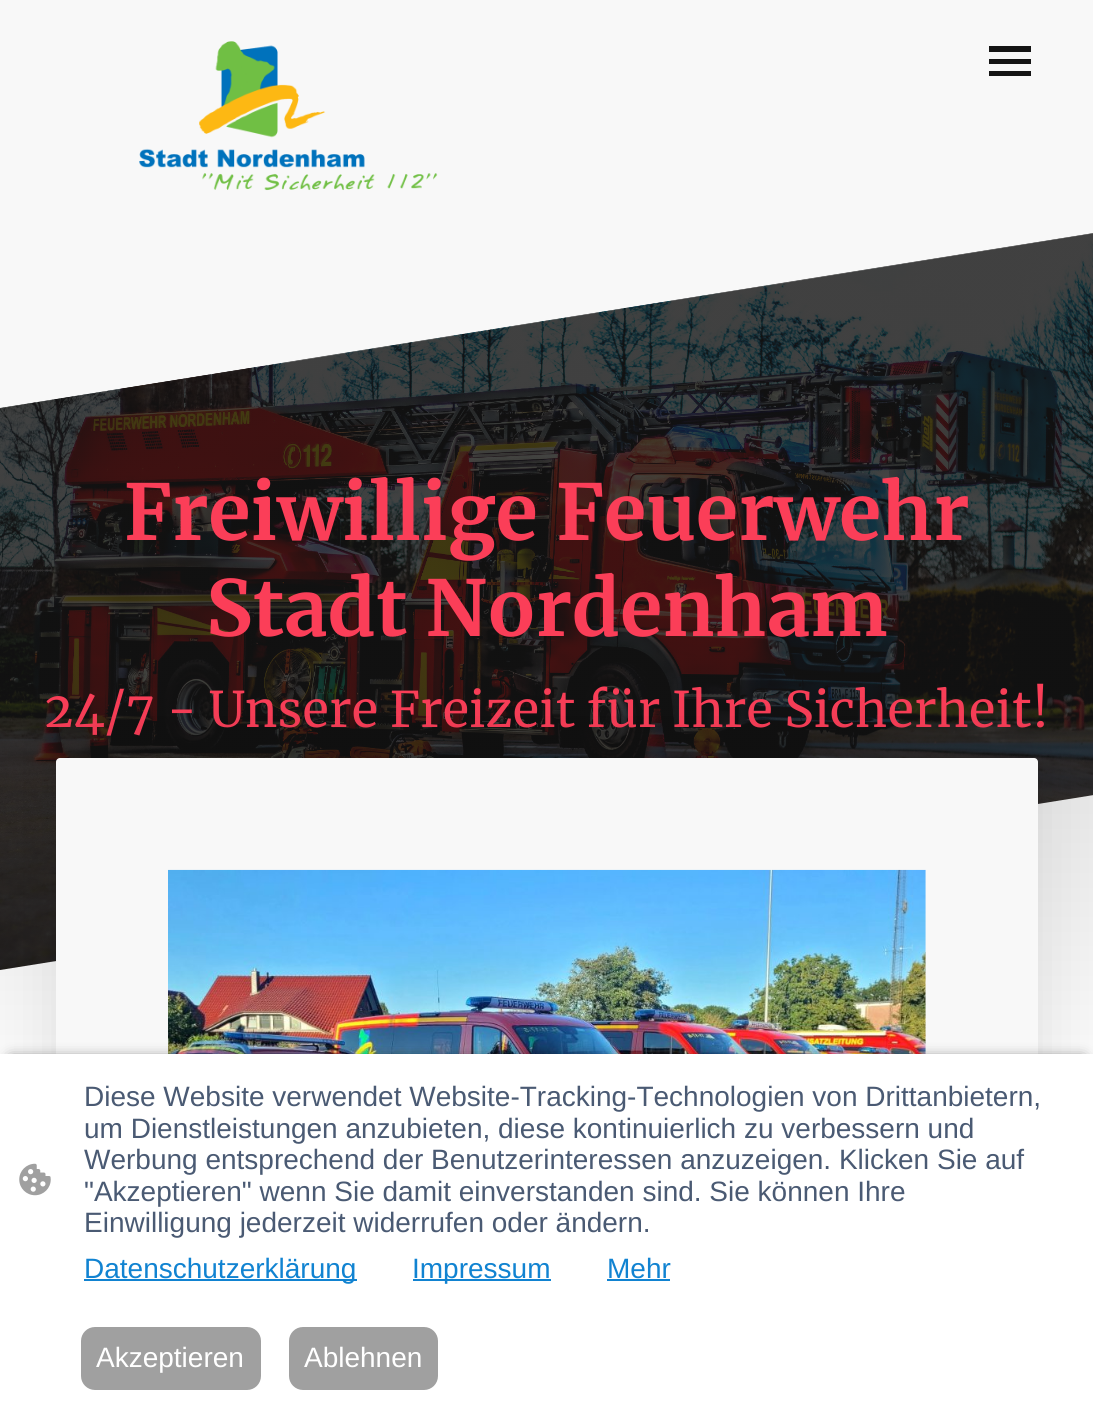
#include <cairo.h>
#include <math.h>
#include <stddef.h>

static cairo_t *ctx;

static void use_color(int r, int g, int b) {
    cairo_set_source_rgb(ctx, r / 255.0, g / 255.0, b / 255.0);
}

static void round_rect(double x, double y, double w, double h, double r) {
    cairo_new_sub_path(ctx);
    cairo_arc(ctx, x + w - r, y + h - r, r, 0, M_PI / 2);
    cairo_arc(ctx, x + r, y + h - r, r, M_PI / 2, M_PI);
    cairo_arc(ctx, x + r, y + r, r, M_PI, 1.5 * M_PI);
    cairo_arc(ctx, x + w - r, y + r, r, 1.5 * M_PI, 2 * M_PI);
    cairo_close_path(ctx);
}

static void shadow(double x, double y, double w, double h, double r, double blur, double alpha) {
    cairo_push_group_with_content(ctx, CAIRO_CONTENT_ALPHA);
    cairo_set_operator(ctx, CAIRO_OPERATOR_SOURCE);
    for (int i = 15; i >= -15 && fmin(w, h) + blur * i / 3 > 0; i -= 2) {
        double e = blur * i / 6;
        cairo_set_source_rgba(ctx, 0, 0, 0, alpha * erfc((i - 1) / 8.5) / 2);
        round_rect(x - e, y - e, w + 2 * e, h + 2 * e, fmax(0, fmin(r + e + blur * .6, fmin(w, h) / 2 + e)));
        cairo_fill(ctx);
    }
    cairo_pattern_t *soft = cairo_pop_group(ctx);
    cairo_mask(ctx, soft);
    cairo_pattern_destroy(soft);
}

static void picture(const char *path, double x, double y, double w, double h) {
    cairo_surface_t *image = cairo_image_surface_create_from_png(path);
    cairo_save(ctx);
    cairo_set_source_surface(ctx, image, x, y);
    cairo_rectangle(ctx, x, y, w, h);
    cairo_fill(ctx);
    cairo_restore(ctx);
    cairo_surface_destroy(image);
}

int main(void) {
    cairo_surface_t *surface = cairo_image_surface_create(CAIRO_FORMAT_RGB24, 1093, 1402);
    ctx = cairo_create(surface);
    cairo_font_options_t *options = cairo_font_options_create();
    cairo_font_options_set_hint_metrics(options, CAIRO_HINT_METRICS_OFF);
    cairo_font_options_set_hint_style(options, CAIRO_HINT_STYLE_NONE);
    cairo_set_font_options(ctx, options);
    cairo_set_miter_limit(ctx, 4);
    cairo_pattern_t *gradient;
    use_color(248, 248, 248);
    cairo_paint(ctx);
    picture("img1.png", 139, 41, 299, 150);
    use_color(21, 21, 21);
    cairo_rectangle(ctx, 989, 46, 42, 6);
    cairo_fill(ctx);
    cairo_rectangle(ctx, 989, 59, 42, 5);
    cairo_fill(ctx);
    cairo_rectangle(ctx, 989, 71, 42, 5);
    cairo_fill(ctx);
    cairo_new_path(ctx);
    cairo_move_to(ctx, 0, 408);
    cairo_line_to(ctx, 0, 971);
    cairo_line_to(ctx, 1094, 971);
    cairo_line_to(ctx, 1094, 233);
    cairo_close_path(ctx);
    cairo_fill(ctx);
    picture("img2.png", 0, 233, 1093, 737);
    cairo_select_font_face(ctx, "Merriweather", CAIRO_FONT_SLANT_NORMAL, CAIRO_FONT_WEIGHT_BOLD);
    cairo_set_font_size(ctx, 77);
    use_color(251, 62, 88);
    cairo_move_to(ctx, 124, 540);
    cairo_show_text(ctx, "Freiwillige Feuerwehr");
    cairo_move_to(ctx, 206, 636);
    cairo_show_text(ctx, "Stadt Nordenham");
    cairo_select_font_face(ctx, "Merriweather", CAIRO_FONT_SLANT_NORMAL, CAIRO_FONT_WEIGHT_NORMAL);
    cairo_set_font_size(ctx, 49);
    cairo_move_to(ctx, 44, 727);
    cairo_show_text(ctx, "24/7 - Unsere Freizeit für Ihre Sicherheit!");
    use_color(248, 248, 248);
    cairo_new_path(ctx);
    cairo_move_to(ctx, 0, 970);
    cairo_line_to(ctx, 0, 1040);
    cairo_line_to(ctx, 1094, 1040);
    cairo_line_to(ctx, 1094, 795);
    cairo_close_path(ctx);
    cairo_fill(ctx);
    gradient = cairo_pattern_create_linear(547, 794, 547, 1057);
    cairo_pattern_add_color_stop_rgba(gradient, 0, 0, 0, 0, 0.07);
    cairo_pattern_add_color_stop_rgba(gradient, 1, 0, 0, 0, 0);
    cairo_set_source(ctx, gradient);
    cairo_pattern_destroy(gradient);
    cairo_new_path(ctx);
    cairo_move_to(ctx, 0, 970);
    cairo_line_to(ctx, 0, 1040);
    cairo_line_to(ctx, 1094, 1040);
    cairo_line_to(ctx, 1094, 795);
    cairo_close_path(ctx);
    cairo_fill(ctx);
    use_color(0, 0, 0);
    shadow(56, 730, 982, 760, 4, 28, 0.1);
    use_color(248, 248, 248);
    round_rect(56, 758, 982, 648, 4);
    cairo_fill(ctx);
    picture("img3.png", 168, 869, 758, 185);
    use_color(0, 0, 0);
    shadow(11, 1059, 1072, 329, 0, 7, 0.63);
    use_color(255, 255, 255);
    cairo_rectangle(ctx, 0, 1054, 1093, 348);
    cairo_fill(ctx);
    picture("img4.png", 19, 1163, 32, 33);
    cairo_select_font_face(ctx, "Liberation Sans", CAIRO_FONT_SLANT_NORMAL, CAIRO_FONT_WEIGHT_NORMAL);
    cairo_set_font_size(ctx, 28);
    use_color(74, 90, 115);
    cairo_move_to(ctx, 84, 1106);
    cairo_show_text(ctx, "Diese Website verwendet Website-Tracking-Technologien von Drittanbietern,");
    cairo_move_to(ctx, 84, 1138);
    cairo_show_text(ctx, "um Dienstleistungen anzubieten, diese kontinuierlich zu verbessern und");
    cairo_move_to(ctx, 84, 1169);
    cairo_show_text(ctx, "Werbung entsprechend der Benutzerinteressen anzuzeigen. Klicken Sie auf");
    cairo_move_to(ctx, 84, 1201);
    cairo_show_text(ctx, "\"Akzeptieren\" wenn Sie damit einverstanden sind. Sie können Ihre");
    cairo_move_to(ctx, 84, 1232);
    cairo_show_text(ctx, "Einwilligung jederzeit widerrufen oder ändern.");
    use_color(17, 131, 209);
    cairo_rectangle(ctx, 84, 1279, 273, 2);
    cairo_fill(ctx);
    cairo_move_to(ctx, 84, 1278);
    cairo_show_text(ctx, "Datenschutzerklärung");
    cairo_rectangle(ctx, 413, 1279, 138, 2);
    cairo_fill(ctx);
    cairo_move_to(ctx, 412, 1278);
    cairo_show_text(ctx, "Impressum");
    cairo_move_to(ctx, 607, 1278);
    cairo_show_text(ctx, "Mehr");
    cairo_rectangle(ctx, 607, 1279, 63, 2);
    cairo_fill(ctx);
    use_color(160, 160, 160);
    round_rect(82, 1328, 178, 61, 13);
    cairo_fill_preserve(ctx);
    cairo_stroke(ctx);
    use_color(255, 255, 255);
    cairo_move_to(ctx, 96, 1367);
    cairo_show_text(ctx, "Akzeptieren");
    use_color(160, 160, 160);
    round_rect(290, 1328, 147, 61, 13);
    cairo_fill_preserve(ctx);
    cairo_stroke(ctx);
    use_color(255, 255, 255);
    cairo_move_to(ctx, 304, 1367);
    cairo_show_text(ctx, "Ablehnen");
    cairo_surface_write_to_png(surface, "result.png");
    cairo_font_options_destroy(options);
    cairo_destroy(ctx);
    cairo_surface_destroy(surface);
    return 0;
}
